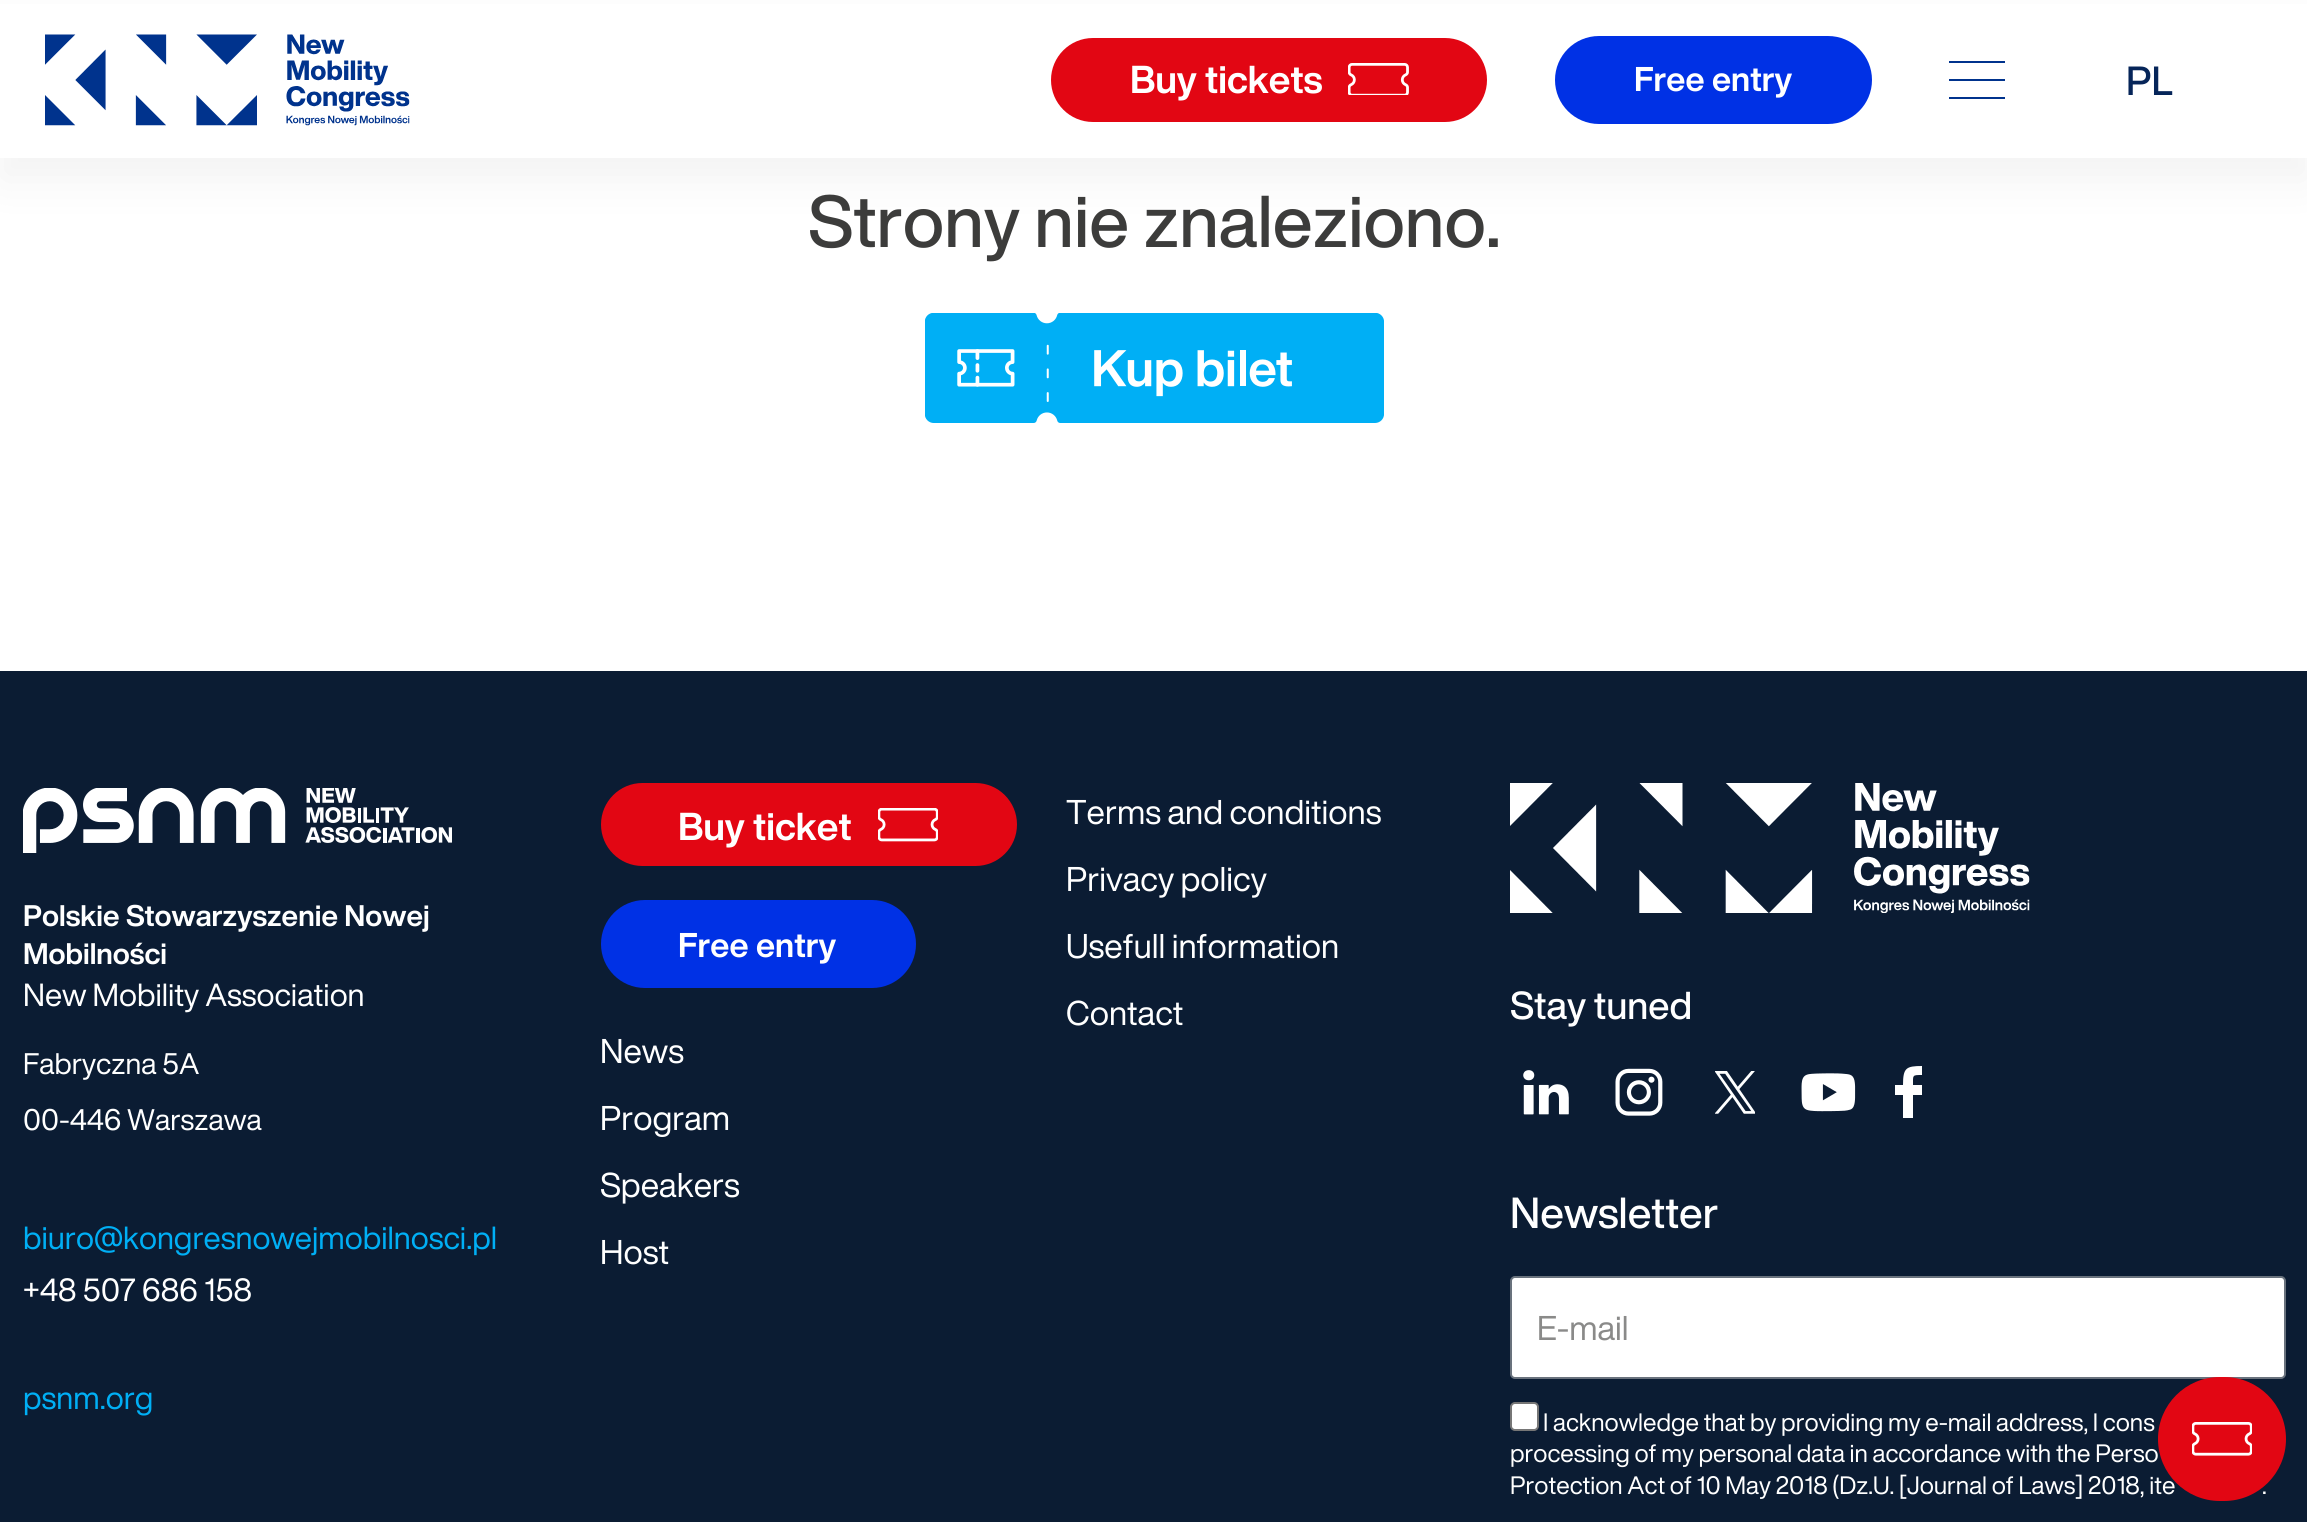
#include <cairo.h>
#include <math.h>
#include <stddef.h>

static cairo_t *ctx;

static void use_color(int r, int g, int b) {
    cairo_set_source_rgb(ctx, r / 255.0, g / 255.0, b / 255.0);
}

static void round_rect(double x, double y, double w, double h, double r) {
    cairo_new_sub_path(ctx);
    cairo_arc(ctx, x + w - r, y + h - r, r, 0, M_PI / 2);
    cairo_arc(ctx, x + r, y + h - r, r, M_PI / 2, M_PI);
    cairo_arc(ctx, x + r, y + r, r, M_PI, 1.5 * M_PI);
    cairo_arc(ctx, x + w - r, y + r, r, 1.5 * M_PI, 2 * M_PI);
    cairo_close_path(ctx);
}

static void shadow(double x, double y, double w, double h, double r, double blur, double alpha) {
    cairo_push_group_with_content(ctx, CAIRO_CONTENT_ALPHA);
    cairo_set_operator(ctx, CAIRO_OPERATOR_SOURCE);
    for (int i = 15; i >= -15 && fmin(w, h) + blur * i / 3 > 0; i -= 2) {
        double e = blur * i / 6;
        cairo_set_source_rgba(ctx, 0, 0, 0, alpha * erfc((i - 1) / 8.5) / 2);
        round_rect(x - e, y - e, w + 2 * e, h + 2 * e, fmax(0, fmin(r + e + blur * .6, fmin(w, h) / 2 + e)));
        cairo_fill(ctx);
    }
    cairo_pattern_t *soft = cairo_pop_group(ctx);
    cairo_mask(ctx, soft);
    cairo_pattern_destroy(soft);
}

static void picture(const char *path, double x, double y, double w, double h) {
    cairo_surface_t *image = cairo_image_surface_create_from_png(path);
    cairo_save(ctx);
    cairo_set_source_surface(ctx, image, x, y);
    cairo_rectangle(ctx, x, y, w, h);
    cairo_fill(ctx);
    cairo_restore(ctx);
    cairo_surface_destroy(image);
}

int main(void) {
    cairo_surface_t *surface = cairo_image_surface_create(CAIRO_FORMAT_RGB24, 2307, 1522);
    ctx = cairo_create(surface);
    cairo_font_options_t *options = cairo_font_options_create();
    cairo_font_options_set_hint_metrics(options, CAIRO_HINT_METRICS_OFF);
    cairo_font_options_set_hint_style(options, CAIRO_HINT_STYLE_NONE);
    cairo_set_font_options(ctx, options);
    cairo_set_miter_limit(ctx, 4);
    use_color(255, 255, 255);
    cairo_paint(ctx);
    use_color(0, 0, 0);
    shadow(0, 23, 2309, 157, 0, 22.5, 0.05);
    use_color(255, 255, 255);
    cairo_rectangle(ctx, 0, 4, 2307, 154);
    cairo_fill(ctx);
    picture("img1.png", 45, 34, 365, 92);
    use_color(226, 6, 19);
    round_rect(1051, 38, 436, 84, 42);
    cairo_fill(ctx);
    cairo_select_font_face(ctx, "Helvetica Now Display", CAIRO_FONT_SLANT_NORMAL, CAIRO_FONT_WEIGHT_BOLD);
    cairo_set_font_size(ctx, 38.25);
    use_color(255, 255, 255);
    cairo_move_to(ctx, 1130, 93);
    cairo_show_text(ctx, "Buy tickets");
    picture("img2.png", 1348, 63, 61, 32);
    use_color(0, 49, 229);
    round_rect(1555, 36, 317, 88, 44);
    cairo_fill(ctx);
    cairo_set_font_size(ctx, 33.75);
    use_color(255, 255, 255);
    cairo_move_to(ctx, 1634, 91);
    cairo_show_text(ctx, "Free entry");
    use_color(0, 51, 141);
    cairo_rectangle(ctx, 1949, 61, 56, 2);
    cairo_fill(ctx);
    cairo_rectangle(ctx, 1949, 79, 56, 2);
    cairo_fill(ctx);
    cairo_rectangle(ctx, 1949, 97, 56, 2);
    cairo_fill(ctx);
    cairo_select_font_face(ctx, "Helvetica Now Display Medium", CAIRO_FONT_SLANT_NORMAL, CAIRO_FONT_WEIGHT_NORMAL);
    cairo_set_font_size(ctx, 40);
    use_color(6, 37, 89);
    cairo_move_to(ctx, 2126, 95);
    cairo_show_text(ctx, "PL");
    cairo_set_font_size(ctx, 72);
    use_color(60, 60, 59);
    cairo_move_to(ctx, 808, 247);
    cairo_show_text(ctx, "Strony nie znaleziono.");
    picture("img3.png", 925, 313, 459, 110);
    use_color(11, 28, 51);
    cairo_rectangle(ctx, 0, 671, 2307, 851);
    cairo_fill(ctx);
    picture("img4.png", 23, 788, 429, 65);
    cairo_select_font_face(ctx, "Helvetica Now Display", CAIRO_FONT_SLANT_NORMAL, CAIRO_FONT_WEIGHT_BOLD);
    cairo_set_font_size(ctx, 29.25);
    use_color(255, 255, 255);
    cairo_move_to(ctx, 23, 926);
    cairo_show_text(ctx, "Polskie Stowarzyszenie Nowej");
    cairo_move_to(ctx, 23, 964);
    cairo_show_text(ctx, "Mobilności");
    cairo_select_font_face(ctx, "Helvetica Now Display", CAIRO_FONT_SLANT_NORMAL, CAIRO_FONT_WEIGHT_NORMAL);
    cairo_set_font_size(ctx, 31.5);
    cairo_move_to(ctx, 23, 1006);
    cairo_show_text(ctx, "New Mobility Association");
    cairo_set_font_size(ctx, 29.25);
    cairo_move_to(ctx, 23, 1074);
    cairo_show_text(ctx, "Fabryczna 5A");
    cairo_move_to(ctx, 23, 1130);
    cairo_show_text(ctx, "00-446 Warszawa");
    cairo_set_font_size(ctx, 31.5);
    use_color(0, 175, 245);
    cairo_move_to(ctx, 23, 1249);
    cairo_show_text(ctx, "biuro@kongresnowejmobilnosci.pl");
    use_color(255, 255, 255);
    cairo_move_to(ctx, 23, 1301);
    cairo_show_text(ctx, "+48 507 686 158");
    use_color(0, 175, 245);
    cairo_move_to(ctx, 23, 1409);
    cairo_show_text(ctx, "psnm.org");
    use_color(226, 6, 19);
    round_rect(601, 783, 416, 83, 41.5);
    cairo_fill(ctx);
    cairo_select_font_face(ctx, "Helvetica Now Display", CAIRO_FONT_SLANT_NORMAL, CAIRO_FONT_WEIGHT_BOLD);
    cairo_set_font_size(ctx, 38.25);
    use_color(255, 255, 255);
    cairo_move_to(ctx, 678, 840);
    cairo_show_text(ctx, "Buy ticket");
    picture("img5.png", 878, 808, 60, 34);
    use_color(0, 49, 229);
    round_rect(601, 900, 315, 88, 44);
    cairo_fill(ctx);
    cairo_set_font_size(ctx, 33.75);
    use_color(255, 255, 255);
    cairo_move_to(ctx, 678, 957);
    cairo_show_text(ctx, "Free entry");
    cairo_select_font_face(ctx, "Helvetica Now Display", CAIRO_FONT_SLANT_NORMAL, CAIRO_FONT_WEIGHT_NORMAL);
    cairo_move_to(ctx, 600, 1063);
    cairo_show_text(ctx, "News");
    cairo_move_to(ctx, 600, 1130);
    cairo_show_text(ctx, "Program");
    cairo_move_to(ctx, 600, 1197);
    cairo_show_text(ctx, "Speakers");
    cairo_move_to(ctx, 600, 1264);
    cairo_show_text(ctx, "Host");
    cairo_move_to(ctx, 1066, 824);
    cairo_show_text(ctx, "Terms and conditions");
    cairo_move_to(ctx, 1066, 891);
    cairo_show_text(ctx, "Privacy policy");
    cairo_move_to(ctx, 1066, 958);
    cairo_show_text(ctx, "Usefull information");
    cairo_move_to(ctx, 1066, 1025);
    cairo_show_text(ctx, "Contact");
    picture("img6.png", 1510, 783, 520, 130);
    cairo_select_font_face(ctx, "Helvetica Now Display Medium", CAIRO_FONT_SLANT_NORMAL, CAIRO_FONT_WEIGHT_NORMAL);
    cairo_set_font_size(ctx, 38.25);
    cairo_move_to(ctx, 1510, 1019);
    cairo_show_text(ctx, "Stay tuned");
    picture("img7.png", 1523, 1070, 46, 45);
    picture("img8.png", 1615, 1068, 48, 48);
    picture("img9.png", 1715, 1071, 40, 43);
    picture("img10.png", 1801, 1073, 55, 39);
    cairo_new_path(ctx);
    cairo_move_to(ctx, 1922, 1075);
    cairo_curve_to(ctx, 1912, 1075, 1913, 1075, 1913, 1085);
    cairo_line_to(ctx, 1922, 1085);
    cairo_line_to(ctx, 1922, 1095);
    cairo_line_to(ctx, 1913, 1095);
    cairo_line_to(ctx, 1913, 1118);
    cairo_line_to(ctx, 1903, 1118);
    cairo_line_to(ctx, 1903, 1095);
    cairo_line_to(ctx, 1895, 1095);
    cairo_line_to(ctx, 1895, 1085);
    cairo_line_to(ctx, 1903, 1085);
    cairo_curve_to(ctx, 1903, 1068, 1906, 1066, 1922, 1066);
    cairo_close_path(ctx);
    cairo_fill(ctx);
    cairo_set_font_size(ctx, 42.75);
    cairo_move_to(ctx, 1510, 1228);
    cairo_show_text(ctx, "Newsletter");
    round_rect(1511, 1277, 774, 101, 4);
    cairo_fill_preserve(ctx);
    use_color(105, 114, 125);
    cairo_stroke(ctx);
    cairo_select_font_face(ctx, "Helvetica Now Display", CAIRO_FONT_SLANT_NORMAL, CAIRO_FONT_WEIGHT_NORMAL);
    cairo_set_font_size(ctx, 33.75);
    use_color(138, 138, 137);
    cairo_move_to(ctx, 1537, 1340);
    cairo_show_text(ctx, "E-mail");
    use_color(255, 255, 255);
    round_rect(1511, 1403, 27, 27, 4);
    cairo_fill_preserve(ctx);
    use_color(118, 118, 118);
    cairo_stroke(ctx);
    cairo_set_font_size(ctx, 24.75);
    use_color(255, 255, 255);
    cairo_move_to(ctx, 1543, 1431);
    cairo_show_text(ctx, "I acknowledge that by providing my e-mail address, I cons");
    cairo_move_to(ctx, 1510, 1462);
    cairo_show_text(ctx, "processing of my personal data in accordance with the Perso");
    cairo_move_to(ctx, 1510, 1494);
    cairo_show_text(ctx, "Protection Act of 10 May 2018 (Dz.U. [Journal of Laws] 2018, ite");
    cairo_move_to(ctx, 2262, 1494);
    cairo_show_text(ctx, ".");
    use_color(226, 6, 19);
    round_rect(2158, 1377, 128, 124, 62);
    cairo_fill(ctx);
    picture("img11.png", 2192, 1422, 60, 34);
    cairo_surface_write_to_png(surface, "result.png");
    cairo_font_options_destroy(options);
    cairo_destroy(ctx);
    cairo_surface_destroy(surface);
    return 0;
}
